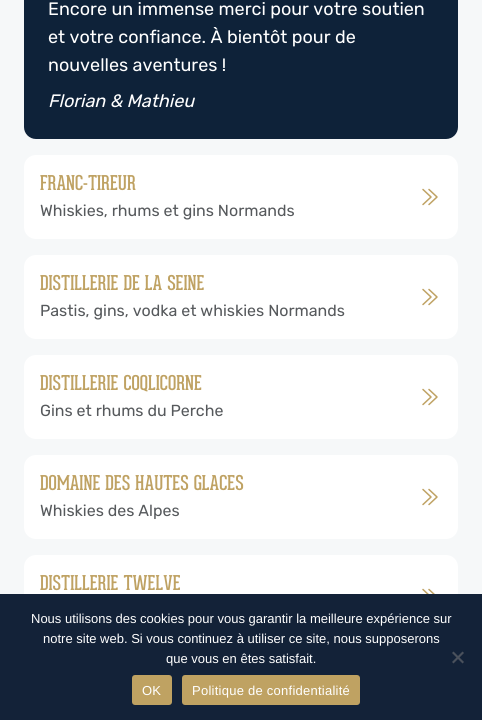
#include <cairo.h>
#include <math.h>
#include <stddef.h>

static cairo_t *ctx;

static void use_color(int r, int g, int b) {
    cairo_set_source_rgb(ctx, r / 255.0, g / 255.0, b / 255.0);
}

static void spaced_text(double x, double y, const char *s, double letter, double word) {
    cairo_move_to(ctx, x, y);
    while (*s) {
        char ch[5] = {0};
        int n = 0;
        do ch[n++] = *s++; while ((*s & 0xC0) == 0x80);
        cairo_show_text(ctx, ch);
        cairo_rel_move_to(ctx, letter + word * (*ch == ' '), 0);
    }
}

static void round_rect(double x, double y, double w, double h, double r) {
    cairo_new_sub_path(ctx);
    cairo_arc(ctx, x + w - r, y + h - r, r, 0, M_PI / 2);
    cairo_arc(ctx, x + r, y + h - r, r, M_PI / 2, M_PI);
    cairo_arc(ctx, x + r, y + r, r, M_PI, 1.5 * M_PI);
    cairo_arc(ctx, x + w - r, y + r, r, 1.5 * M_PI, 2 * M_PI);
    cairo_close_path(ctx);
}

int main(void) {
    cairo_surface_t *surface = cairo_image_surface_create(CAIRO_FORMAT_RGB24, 482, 720);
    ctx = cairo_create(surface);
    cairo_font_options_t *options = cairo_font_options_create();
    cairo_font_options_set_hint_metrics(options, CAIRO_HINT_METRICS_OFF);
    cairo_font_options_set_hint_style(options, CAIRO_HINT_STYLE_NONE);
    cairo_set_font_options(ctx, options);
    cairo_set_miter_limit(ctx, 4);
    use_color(246, 248, 249);
    cairo_paint(ctx);
    use_color(14, 34, 57);
    round_rect(24, -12, 434, 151, 12);
    cairo_fill(ctx);
    cairo_select_font_face(ctx, "Rubik", CAIRO_FONT_SLANT_NORMAL, CAIRO_FONT_WEIGHT_NORMAL);
    cairo_set_font_size(ctx, 18);
    use_color(255, 255, 255);
    cairo_move_to(ctx, 48, 15);
    cairo_show_text(ctx, "Encore un immense merci pour votre soutien");
    cairo_move_to(ctx, 48, 43);
    cairo_show_text(ctx, "et votre confiance. À bientôt pour de");
    cairo_move_to(ctx, 48, 71);
    cairo_show_text(ctx, "nouvelles aventures !");
    cairo_select_font_face(ctx, "Rubik", CAIRO_FONT_SLANT_ITALIC, CAIRO_FONT_WEIGHT_NORMAL);
    cairo_move_to(ctx, 48, 107);
    cairo_show_text(ctx, "Florian & Mathieu");
    round_rect(24, 155, 434, 84, 12);
    cairo_fill(ctx);
    cairo_select_font_face(ctx, "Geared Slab", CAIRO_FONT_SLANT_NORMAL, CAIRO_FONT_WEIGHT_NORMAL);
    cairo_set_font_size(ctx, 20);
    use_color(191, 162, 99);
    cairo_move_to(ctx, 40, 190);
    cairo_show_text(ctx, "FRANC-TIREUR");
    cairo_select_font_face(ctx, "Rubik", CAIRO_FONT_SLANT_NORMAL, CAIRO_FONT_WEIGHT_NORMAL);
    cairo_set_font_size(ctx, 16);
    use_color(86, 89, 92);
    cairo_move_to(ctx, 40, 216);
    cairo_show_text(ctx, "Whiskies, rhums et gins Normands");
    cairo_new_path(ctx);
    cairo_move_to(ctx, 423, 189.5);
    cairo_line_to(ctx, 431, 197);
    cairo_line_to(ctx, 423, 204.5);
    cairo_move_to(ctx, 429, 189.5);
    cairo_line_to(ctx, 437, 197);
    cairo_line_to(ctx, 429, 204.5);
    use_color(191, 162, 99);
    cairo_set_line_width(ctx, 1.5);
    cairo_set_line_cap(ctx, CAIRO_LINE_CAP_ROUND);
    cairo_set_line_join(ctx, CAIRO_LINE_JOIN_ROUND);
    cairo_stroke(ctx);
    use_color(255, 255, 255);
    round_rect(24, 255, 434, 84, 12);
    cairo_fill(ctx);
    cairo_select_font_face(ctx, "Geared Slab", CAIRO_FONT_SLANT_NORMAL, CAIRO_FONT_WEIGHT_NORMAL);
    cairo_set_font_size(ctx, 20);
    use_color(191, 162, 99);
    cairo_move_to(ctx, 40, 290);
    cairo_show_text(ctx, "DISTILLERIE DE LA SEINE");
    cairo_select_font_face(ctx, "Rubik", CAIRO_FONT_SLANT_NORMAL, CAIRO_FONT_WEIGHT_NORMAL);
    cairo_set_font_size(ctx, 16);
    use_color(86, 89, 92);
    cairo_move_to(ctx, 40, 316);
    cairo_show_text(ctx, "Pastis, gins, vodka et whiskies Normands");
    cairo_new_path(ctx);
    cairo_move_to(ctx, 423, 289.5);
    cairo_line_to(ctx, 431, 297);
    cairo_line_to(ctx, 423, 304.5);
    cairo_move_to(ctx, 429, 289.5);
    cairo_line_to(ctx, 437, 297);
    cairo_line_to(ctx, 429, 304.5);
    use_color(191, 162, 99);
    cairo_stroke(ctx);
    use_color(255, 255, 255);
    round_rect(24, 355, 434, 84, 12);
    cairo_fill(ctx);
    cairo_select_font_face(ctx, "Geared Slab", CAIRO_FONT_SLANT_NORMAL, CAIRO_FONT_WEIGHT_NORMAL);
    cairo_set_font_size(ctx, 20);
    use_color(191, 162, 99);
    cairo_move_to(ctx, 40, 390);
    cairo_show_text(ctx, "DISTILLERIE COQLICORNE");
    cairo_select_font_face(ctx, "Rubik", CAIRO_FONT_SLANT_NORMAL, CAIRO_FONT_WEIGHT_NORMAL);
    cairo_set_font_size(ctx, 16);
    use_color(86, 89, 92);
    cairo_move_to(ctx, 40, 416);
    cairo_show_text(ctx, "Gins et rhums du Perche");
    cairo_new_path(ctx);
    cairo_move_to(ctx, 423, 389.5);
    cairo_line_to(ctx, 431, 397);
    cairo_line_to(ctx, 423, 404.5);
    cairo_move_to(ctx, 429, 389.5);
    cairo_line_to(ctx, 437, 397);
    cairo_line_to(ctx, 429, 404.5);
    use_color(191, 162, 99);
    cairo_stroke(ctx);
    use_color(255, 255, 255);
    round_rect(24, 455, 434, 84, 12);
    cairo_fill(ctx);
    cairo_select_font_face(ctx, "Geared Slab", CAIRO_FONT_SLANT_NORMAL, CAIRO_FONT_WEIGHT_NORMAL);
    cairo_set_font_size(ctx, 20);
    use_color(191, 162, 99);
    cairo_move_to(ctx, 40, 490);
    cairo_show_text(ctx, "DOMAINE DES HAUTES GLACES");
    cairo_select_font_face(ctx, "Rubik", CAIRO_FONT_SLANT_NORMAL, CAIRO_FONT_WEIGHT_NORMAL);
    cairo_set_font_size(ctx, 16);
    use_color(86, 89, 92);
    cairo_move_to(ctx, 40, 516);
    cairo_show_text(ctx, "Whiskies des Alpes");
    cairo_new_path(ctx);
    cairo_move_to(ctx, 423, 489.5);
    cairo_line_to(ctx, 431, 497);
    cairo_line_to(ctx, 423, 504.5);
    cairo_move_to(ctx, 429, 489.5);
    cairo_line_to(ctx, 437, 497);
    cairo_line_to(ctx, 429, 504.5);
    use_color(191, 162, 99);
    cairo_stroke(ctx);
    use_color(255, 255, 255);
    round_rect(24, 555, 434, 84, 12);
    cairo_fill(ctx);
    cairo_select_font_face(ctx, "Geared Slab", CAIRO_FONT_SLANT_NORMAL, CAIRO_FONT_WEIGHT_NORMAL);
    cairo_set_font_size(ctx, 20);
    use_color(191, 162, 99);
    cairo_move_to(ctx, 40, 590);
    cairo_show_text(ctx, "DISTILLERIE TWELVE");
    cairo_new_path(ctx);
    cairo_move_to(ctx, 423, 589.5);
    cairo_line_to(ctx, 431, 597);
    cairo_line_to(ctx, 423, 604.5);
    cairo_move_to(ctx, 429, 589.5);
    cairo_line_to(ctx, 437, 597);
    cairo_line_to(ctx, 429, 604.5);
    cairo_stroke(ctx);
    use_color(19, 34, 56);
    cairo_rectangle(ctx, 0, 594, 482, 126);
    cairo_fill(ctx);
    cairo_select_font_face(ctx, "Liberation Sans", CAIRO_FONT_SLANT_NORMAL, CAIRO_FONT_WEIGHT_NORMAL);
    cairo_set_font_size(ctx, 13);
    use_color(255, 255, 255);
    cairo_move_to(ctx, 31, 623);
    cairo_show_text(ctx, "Nous utilisons des cookies pour vous garantir la meilleure expérience sur");
    cairo_move_to(ctx, 43, 643);
    cairo_show_text(ctx, "notre site web. Si vous continuez à utiliser ce site, nous supposerons");
    cairo_move_to(ctx, 166, 663);
    cairo_show_text(ctx, "que vous en êtes satisfait.");
    use_color(74, 81, 92);
    cairo_new_path(ctx);
    cairo_move_to(ctx, 462.5, 651.5);
    cairo_line_to(ctx, 464, 653);
    cairo_line_to(ctx, 453.5, 663.5);
    cairo_line_to(ctx, 452, 662);
    cairo_close_path(ctx);
    cairo_fill(ctx);
    cairo_new_path(ctx);
    cairo_move_to(ctx, 452, 653);
    cairo_line_to(ctx, 453.5, 651.5);
    cairo_line_to(ctx, 464, 662);
    cairo_line_to(ctx, 462.5, 663.5);
    cairo_close_path(ctx);
    cairo_fill(ctx);
    use_color(191, 162, 98);
    round_rect(132, 675, 40, 30, 3);
    cairo_fill(ctx);
    use_color(255, 255, 255);
    spaced_text(142, 695, "OK", 0.25, 0);
    use_color(191, 162, 98);
    round_rect(182, 675, 178, 30, 3);
    cairo_fill(ctx);
    use_color(255, 255, 255);
    spaced_text(192, 695, "Politique de confidentialité", 0.25, 0);
    cairo_surface_write_to_png(surface, "result.png");
    cairo_font_options_destroy(options);
    cairo_destroy(ctx);
    cairo_surface_destroy(surface);
    return 0;
}
